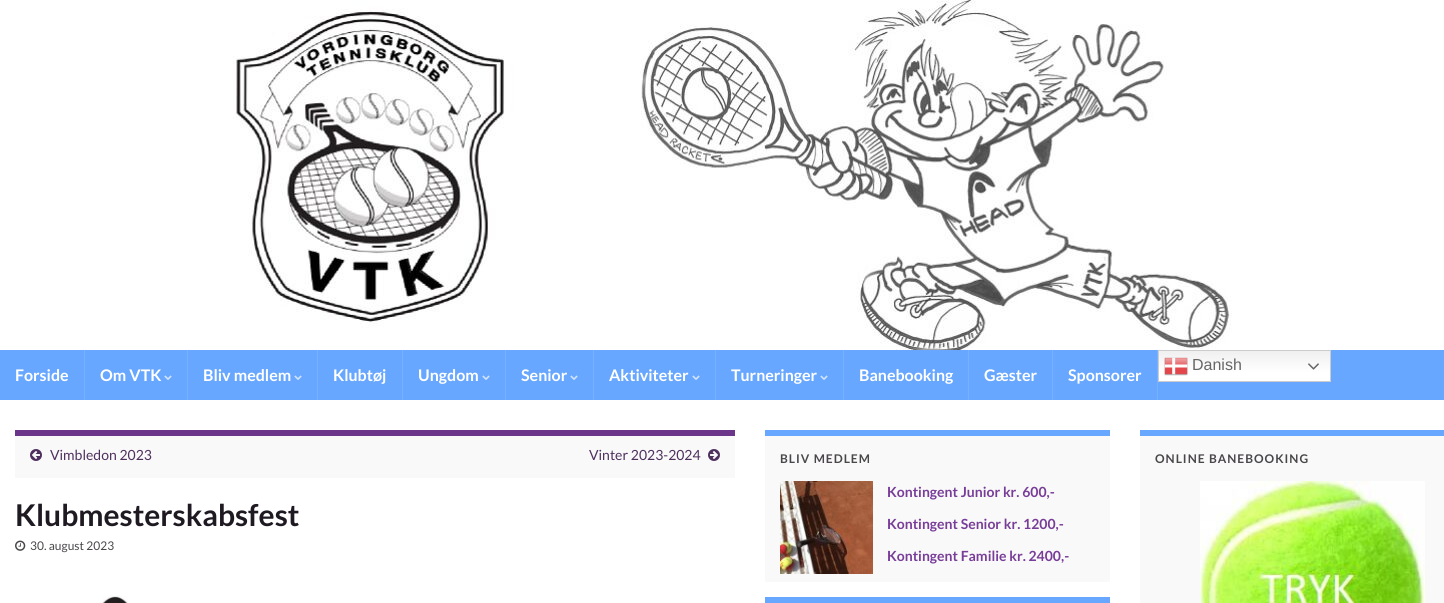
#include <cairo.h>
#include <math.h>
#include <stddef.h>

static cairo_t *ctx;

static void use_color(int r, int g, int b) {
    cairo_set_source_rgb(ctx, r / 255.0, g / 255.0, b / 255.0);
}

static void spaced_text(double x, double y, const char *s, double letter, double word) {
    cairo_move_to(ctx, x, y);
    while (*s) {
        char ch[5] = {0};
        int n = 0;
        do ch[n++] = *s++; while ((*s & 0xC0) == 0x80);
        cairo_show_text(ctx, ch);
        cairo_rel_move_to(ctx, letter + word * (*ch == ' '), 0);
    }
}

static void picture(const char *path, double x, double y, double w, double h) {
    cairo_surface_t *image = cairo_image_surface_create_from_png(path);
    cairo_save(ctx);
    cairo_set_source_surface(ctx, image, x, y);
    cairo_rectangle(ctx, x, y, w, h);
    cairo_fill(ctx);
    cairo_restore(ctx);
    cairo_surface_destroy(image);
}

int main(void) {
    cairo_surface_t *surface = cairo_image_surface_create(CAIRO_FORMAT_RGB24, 1444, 603);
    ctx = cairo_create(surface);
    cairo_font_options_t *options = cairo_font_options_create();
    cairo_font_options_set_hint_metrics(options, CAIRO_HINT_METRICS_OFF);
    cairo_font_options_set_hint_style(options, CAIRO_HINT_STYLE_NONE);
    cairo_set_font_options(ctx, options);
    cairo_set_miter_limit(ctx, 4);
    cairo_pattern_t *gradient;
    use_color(255, 255, 255);
    cairo_paint(ctx);
    picture("img1.png", 233, 0, 999, 350);
    use_color(104, 167, 255);
    cairo_rectangle(ctx, 0, 350, 1444, 50);
    cairo_fill(ctx);
    gradient = cairo_pattern_create_linear(1245, 350, 1245, 382);
    cairo_pattern_add_color_stop_rgba(gradient, 0, 0.937, 0.937, 0.937, 1);
    cairo_pattern_add_color_stop_rgba(gradient, 0.7, 1, 1, 1, 1);
    cairo_set_source(ctx, gradient);
    cairo_pattern_destroy(gradient);
    cairo_rectangle(ctx, 1159, 351, 171, 30);
    cairo_fill(ctx);
    cairo_rectangle(ctx, 1158.5, 350.5, 172, 31);
    use_color(204, 204, 204);
    cairo_set_line_width(ctx, 1);
    cairo_stroke(ctx);
    picture("img2.png", 1164, 357, 24, 19);
    cairo_select_font_face(ctx, "Liberation Sans", CAIRO_FONT_SLANT_NORMAL, CAIRO_FONT_WEIGHT_NORMAL);
    cairo_set_font_size(ctx, 16);
    use_color(102, 102, 102);
    cairo_move_to(ctx, 1192, 370);
    cairo_show_text(ctx, "Danish");
    picture("img3.png", 1308, 363, 11, 7);
    use_color(119, 176, 255);
    cairo_rectangle(ctx, 84, 350, 1, 50);
    cairo_fill(ctx);
    cairo_select_font_face(ctx, "Lato", CAIRO_FONT_SLANT_NORMAL, CAIRO_FONT_WEIGHT_BOLD);
    use_color(255, 255, 255);
    cairo_move_to(ctx, 15, 381);
    cairo_show_text(ctx, "Forside");
    use_color(119, 176, 255);
    cairo_rectangle(ctx, 187, 350, 1, 50);
    cairo_fill(ctx);
    use_color(255, 255, 255);
    cairo_move_to(ctx, 100, 381);
    cairo_show_text(ctx, "Om VTK");
    picture("img4.png", 164, 375, 8, 5);
    use_color(119, 176, 255);
    cairo_rectangle(ctx, 317, 350, 1, 50);
    cairo_fill(ctx);
    use_color(255, 255, 255);
    cairo_move_to(ctx, 203, 381);
    cairo_show_text(ctx, "Bliv medlem");
    picture("img4.png", 294, 375, 8, 5);
    use_color(119, 176, 255);
    cairo_rectangle(ctx, 402, 350, 1, 50);
    cairo_fill(ctx);
    use_color(255, 255, 255);
    cairo_move_to(ctx, 333, 381);
    cairo_show_text(ctx, "Klubtøj");
    use_color(119, 176, 255);
    cairo_rectangle(ctx, 505, 350, 1, 50);
    cairo_fill(ctx);
    use_color(255, 255, 255);
    cairo_move_to(ctx, 418, 381);
    cairo_show_text(ctx, "Ungdom");
    picture("img4.png", 482, 375, 8, 5);
    use_color(119, 176, 255);
    cairo_rectangle(ctx, 593, 350, 1, 50);
    cairo_fill(ctx);
    use_color(255, 255, 255);
    cairo_move_to(ctx, 521, 381);
    cairo_show_text(ctx, "Senior");
    picture("img4.png", 570, 375, 8, 5);
    use_color(119, 176, 255);
    cairo_rectangle(ctx, 715, 350, 1, 50);
    cairo_fill(ctx);
    use_color(255, 255, 255);
    cairo_move_to(ctx, 609, 381);
    cairo_show_text(ctx, "Aktiviteter");
    picture("img4.png", 692, 375, 8, 5);
    use_color(119, 176, 255);
    cairo_rectangle(ctx, 843, 350, 1, 50);
    cairo_fill(ctx);
    use_color(255, 255, 255);
    cairo_move_to(ctx, 731, 381);
    cairo_show_text(ctx, "Turneringer");
    picture("img4.png", 820, 375, 8, 5);
    use_color(119, 176, 255);
    cairo_rectangle(ctx, 968, 350, 1, 50);
    cairo_fill(ctx);
    use_color(255, 255, 255);
    cairo_move_to(ctx, 859, 381);
    cairo_show_text(ctx, "Banebooking");
    use_color(119, 176, 255);
    cairo_rectangle(ctx, 1052, 350, 1, 50);
    cairo_fill(ctx);
    use_color(255, 255, 255);
    cairo_move_to(ctx, 984, 381);
    cairo_show_text(ctx, "Gæster");
    use_color(119, 176, 255);
    cairo_rectangle(ctx, 1157, 350, 1, 50);
    cairo_fill(ctx);
    use_color(255, 255, 255);
    cairo_move_to(ctx, 1068, 381);
    cairo_show_text(ctx, "Sponsorer");
    use_color(249, 249, 249);
    cairo_rectangle(ctx, 15, 436, 720, 42);
    cairo_fill(ctx);
    use_color(107, 53, 137);
    cairo_rectangle(ctx, 15, 430, 720, 6);
    cairo_fill(ctx);
    picture("img5.png", 30, 449, 12, 12);
    cairo_select_font_face(ctx, "Lato", CAIRO_FONT_SLANT_NORMAL, CAIRO_FONT_WEIGHT_NORMAL);
    cairo_set_font_size(ctx, 14);
    use_color(78, 48, 94);
    cairo_move_to(ctx, 50, 460);
    cairo_show_text(ctx, "Vimbledon 2023");
    cairo_move_to(ctx, 589, 460);
    cairo_show_text(ctx, "Vinter 2023-2024");
    picture("img6.png", 708, 449, 12, 12);
    cairo_select_font_face(ctx, "Lato", CAIRO_FONT_SLANT_NORMAL, CAIRO_FONT_WEIGHT_BOLD);
    cairo_set_font_size(ctx, 30);
    use_color(31, 26, 34);
    cairo_move_to(ctx, 15, 526);
    cairo_show_text(ctx, "Klubmesterskabsfest");
    picture("img7.png", 15, 540, 11, 11);
    cairo_select_font_face(ctx, "Lato", CAIRO_FONT_SLANT_NORMAL, CAIRO_FONT_WEIGHT_NORMAL);
    cairo_set_font_size(ctx, 12);
    use_color(74, 71, 75);
    cairo_move_to(ctx, 30, 550);
    cairo_show_text(ctx, "30. august 2023");
    picture("img8.png", 102, 595, 26, 8);
    use_color(249, 249, 249);
    cairo_rectangle(ctx, 765, 436, 345, 146);
    cairo_fill(ctx);
    use_color(104, 167, 255);
    cairo_rectangle(ctx, 765, 430, 345, 6);
    cairo_fill(ctx);
    cairo_select_font_face(ctx, "Lato", CAIRO_FONT_SLANT_NORMAL, CAIRO_FONT_WEIGHT_BOLD);
    use_color(74, 71, 75);
    spaced_text(780, 463, "BLIV MEDLEM", 1, 0);
    picture("img9.png", 780, 481, 93, 93);
    cairo_set_font_size(ctx, 14);
    use_color(120, 61, 152);
    cairo_move_to(ctx, 887, 497);
    cairo_show_text(ctx, "Kontingent Junior kr. 600,-");
    cairo_move_to(ctx, 887, 529);
    cairo_show_text(ctx, "Kontingent Senior kr. 1200,-");
    cairo_move_to(ctx, 887, 561);
    cairo_show_text(ctx, "Kontingent Familie kr. 2400,-");
    use_color(104, 167, 255);
    cairo_rectangle(ctx, 765, 597, 345, 6);
    cairo_fill(ctx);
    use_color(249, 249, 249);
    cairo_rectangle(ctx, 1140, 436, 304, 167);
    cairo_fill(ctx);
    use_color(104, 167, 255);
    cairo_rectangle(ctx, 1140, 430, 304, 6);
    cairo_fill(ctx);
    cairo_set_font_size(ctx, 12);
    use_color(74, 71, 75);
    spaced_text(1155, 463, "ONLINE BANEBOOKING", 1, 0);
    picture("img10.png", 1200, 481, 225, 122);
    cairo_surface_write_to_png(surface, "result.png");
    cairo_font_options_destroy(options);
    cairo_destroy(ctx);
    cairo_surface_destroy(surface);
    return 0;
}
